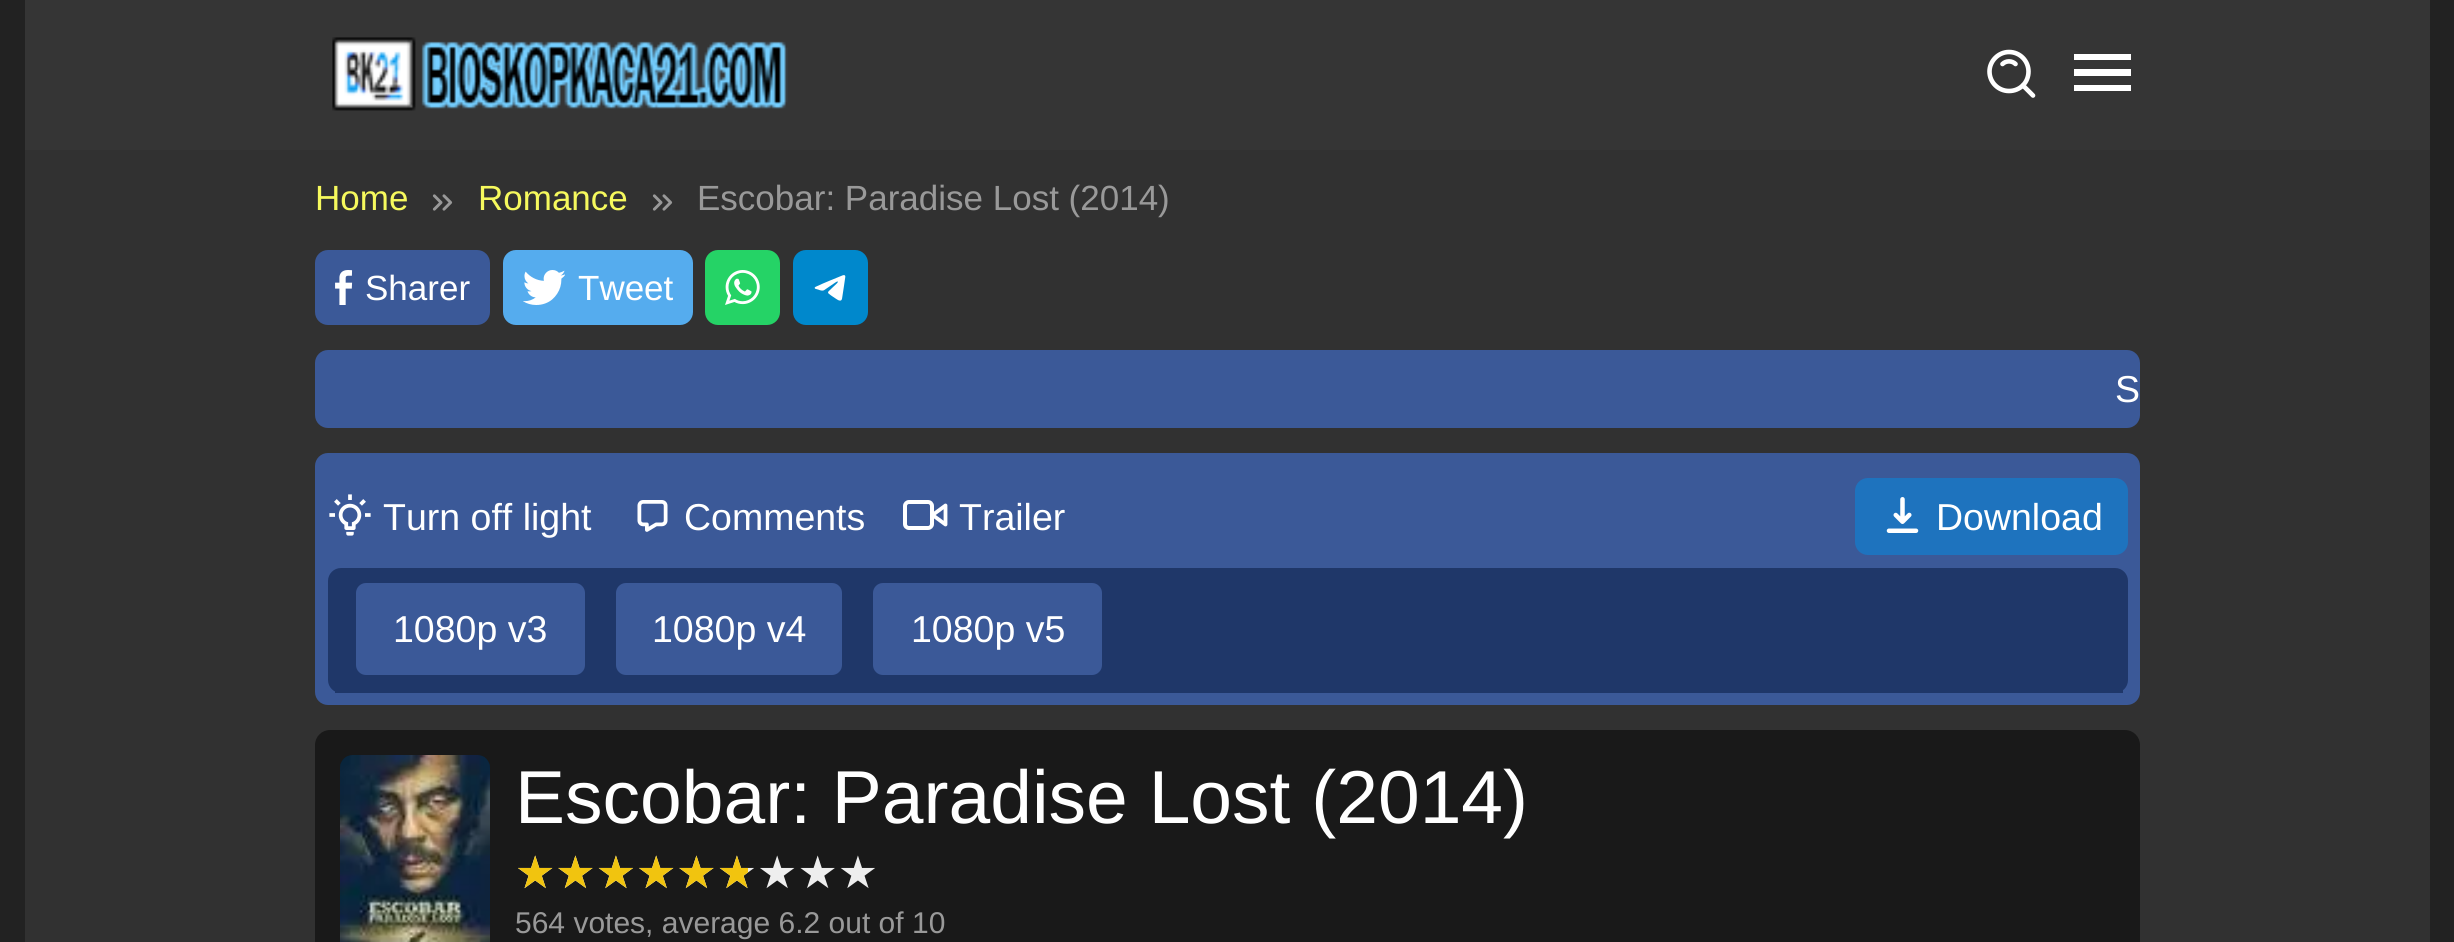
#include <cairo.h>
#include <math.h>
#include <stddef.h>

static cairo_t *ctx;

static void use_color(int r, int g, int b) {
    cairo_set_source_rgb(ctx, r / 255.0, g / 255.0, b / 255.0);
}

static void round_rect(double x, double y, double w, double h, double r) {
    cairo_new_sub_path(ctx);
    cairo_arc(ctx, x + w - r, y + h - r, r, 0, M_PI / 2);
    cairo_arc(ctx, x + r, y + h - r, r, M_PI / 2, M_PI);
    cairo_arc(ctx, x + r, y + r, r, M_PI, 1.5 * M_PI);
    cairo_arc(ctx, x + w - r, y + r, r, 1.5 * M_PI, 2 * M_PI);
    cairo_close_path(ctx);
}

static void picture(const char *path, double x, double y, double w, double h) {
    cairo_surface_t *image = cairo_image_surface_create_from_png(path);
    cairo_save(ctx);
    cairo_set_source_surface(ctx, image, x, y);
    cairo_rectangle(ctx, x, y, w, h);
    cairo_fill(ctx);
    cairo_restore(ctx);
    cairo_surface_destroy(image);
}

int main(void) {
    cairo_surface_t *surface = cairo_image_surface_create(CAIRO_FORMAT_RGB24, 2454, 942);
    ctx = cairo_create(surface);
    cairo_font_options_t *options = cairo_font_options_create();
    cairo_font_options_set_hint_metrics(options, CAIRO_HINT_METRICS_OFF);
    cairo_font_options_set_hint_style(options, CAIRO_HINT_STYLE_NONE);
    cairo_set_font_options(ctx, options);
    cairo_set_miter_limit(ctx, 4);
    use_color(34, 34, 34);
    cairo_paint(ctx);
    use_color(53, 53, 53);
    cairo_rectangle(ctx, 25, 0, 2405, 150);
    cairo_fill(ctx);
    picture("img1.png", 332, 37, 456, 74);
    cairo_new_path(ctx);
    cairo_move_to(ctx, 2009, 91);
    cairo_curve_to(ctx, 2020, 91, 2028.5, 82.5, 2028.5, 71.5);
    cairo_curve_to(ctx, 2028.5, 61, 2020, 52, 2009, 52);
    cairo_curve_to(ctx, 1998.5, 52, 1989.5, 61, 1989.5, 71.5);
    cairo_curve_to(ctx, 1989.5, 82.5, 1998.5, 91, 2009, 91);
    cairo_close_path(ctx);
    use_color(255, 255, 255);
    cairo_set_line_width(ctx, 4.6);
    cairo_set_line_join(ctx, CAIRO_LINE_JOIN_ROUND);
    cairo_stroke(ctx);
    cairo_new_path(ctx);
    cairo_move_to(ctx, 2015.5, 64);
    cairo_curve_to(ctx, 2012, 60.5, 2006, 60.5, 2002.5, 64);
    cairo_move_to(ctx, 2023, 85.5);
    cairo_line_to(ctx, 2033, 95.5);
    cairo_set_line_cap(ctx, CAIRO_LINE_CAP_ROUND);
    cairo_stroke(ctx);
    cairo_new_path(ctx);
    cairo_move_to(ctx, 2131, 54);
    cairo_line_to(ctx, 2131, 60);
    cairo_line_to(ctx, 2074, 60);
    cairo_line_to(ctx, 2074, 54);
    cairo_close_path(ctx);
    cairo_move_to(ctx, 2074, 91);
    cairo_line_to(ctx, 2131, 91);
    cairo_line_to(ctx, 2131, 85);
    cairo_line_to(ctx, 2074, 85);
    cairo_close_path(ctx);
    cairo_move_to(ctx, 2074, 76);
    cairo_line_to(ctx, 2131, 76);
    cairo_line_to(ctx, 2131, 69);
    cairo_line_to(ctx, 2074, 69);
    cairo_close_path(ctx);
    cairo_fill(ctx);
    use_color(49, 49, 49);
    cairo_rectangle(ctx, 25, 150, 2405, 792);
    cairo_fill(ctx);
    cairo_select_font_face(ctx, "Liberation Sans", CAIRO_FONT_SLANT_NORMAL, CAIRO_FONT_WEIGHT_NORMAL);
    cairo_set_font_size(ctx, 35);
    use_color(246, 249, 93);
    cairo_move_to(ctx, 315, 210);
    cairo_show_text(ctx, "Home");
    picture("img2.png", 432, 194, 21, 17);
    cairo_move_to(ctx, 478, 210);
    cairo_show_text(ctx, "Romance");
    picture("img2.png", 652, 194, 21, 17);
    use_color(153, 153, 153);
    cairo_move_to(ctx, 697, 210);
    cairo_show_text(ctx, "Escobar: Paradise Lost (2014)");
    use_color(59, 89, 152);
    round_rect(315, 250, 175, 75, 13);
    cairo_fill(ctx);
    picture("img3.png", 335, 270, 18, 35);
    use_color(255, 255, 255);
    cairo_move_to(ctx, 365, 300);
    cairo_show_text(ctx, "Sharer");
    use_color(85, 172, 238);
    round_rect(503, 250, 190, 75, 13);
    cairo_fill(ctx);
    picture("img4.png", 523, 270, 42, 35);
    use_color(255, 255, 255);
    cairo_move_to(ctx, 578, 300);
    cairo_show_text(ctx, "Tweet");
    use_color(37, 211, 102);
    round_rect(705, 250, 75, 75, 13);
    cairo_fill(ctx);
    picture("img5.png", 725, 270, 35, 35);
    use_color(0, 136, 204);
    round_rect(793, 250, 75, 75, 13);
    cairo_fill(ctx);
    picture("img6.png", 814, 275, 32, 26);
    use_color(59, 89, 152);
    round_rect(315, 350, 1825, 78, 13);
    cairo_fill(ctx);
    cairo_set_font_size(ctx, 37.5);
    use_color(255, 255, 255);
    cairo_move_to(ctx, 2115, 402);
    cairo_show_text(ctx, "S");
    use_color(59, 89, 152);
    round_rect(315, 453, 1825, 252, 13);
    cairo_fill(ctx);
    picture("img7.png", 329, 494, 42, 42);
    use_color(255, 255, 255);
    cairo_move_to(ctx, 383, 530);
    cairo_show_text(ctx, "Turn off light");
    picture("img8.png", 637, 500, 31, 32);
    cairo_move_to(ctx, 684, 530);
    cairo_show_text(ctx, "Comments");
    cairo_new_path(ctx);
    cairo_move_to(ctx, 945.5, 505.5);
    cairo_line_to(ctx, 932.5, 515);
    cairo_line_to(ctx, 945.5, 524.5);
    cairo_close_path(ctx);
    cairo_set_line_width(ctx, 3.8);
    cairo_stroke(ctx);
    round_rect(905, 502, 27, 26, 4);
    cairo_set_line_width(ctx, 4);
    cairo_set_line_cap(ctx, CAIRO_LINE_CAP_BUTT);
    cairo_set_line_join(ctx, CAIRO_LINE_JOIN_MITER);
    cairo_stroke(ctx);
    cairo_move_to(ctx, 959, 530);
    cairo_show_text(ctx, "Trailer");
    use_color(30, 115, 190);
    round_rect(1855, 478, 273, 77, 13);
    cairo_fill(ctx);
    picture("img9.png", 1886, 497, 33, 36);
    use_color(255, 255, 255);
    cairo_move_to(ctx, 1936, 530);
    cairo_show_text(ctx, "Download");
    use_color(31, 55, 105);
    round_rect(328, 568, 1800, 125, 13);
    cairo_fill(ctx);
    cairo_rectangle(ctx, 335, 690, 1788, 3);
    cairo_fill(ctx);
    use_color(59, 89, 152);
    round_rect(354.5, 581.5, 232, 95, 11.5);
    cairo_fill_preserve(ctx);
    use_color(31, 55, 105);
    cairo_set_line_width(ctx, 3);
    cairo_stroke(ctx);
    use_color(255, 255, 255);
    cairo_move_to(ctx, 393, 642);
    cairo_show_text(ctx, "1080p v3");
    use_color(59, 89, 152);
    round_rect(614.5, 581.5, 229, 95, 11.5);
    cairo_fill_preserve(ctx);
    use_color(31, 55, 105);
    cairo_stroke(ctx);
    use_color(255, 255, 255);
    cairo_move_to(ctx, 652, 642);
    cairo_show_text(ctx, "1080p v4");
    use_color(59, 89, 152);
    round_rect(871.5, 581.5, 232, 95, 11.5);
    cairo_fill_preserve(ctx);
    use_color(31, 55, 105);
    cairo_stroke(ctx);
    use_color(255, 255, 255);
    cairo_move_to(ctx, 911, 642);
    cairo_show_text(ctx, "1080p v5");
    use_color(25, 25, 25);
    round_rect(315, 730, 1825, 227, 15);
    cairo_fill(ctx);
    picture("img10.png", 340, 755, 150, 187);
    cairo_set_font_size(ctx, 75);
    use_color(255, 255, 255);
    cairo_move_to(ctx, 515, 823);
    cairo_show_text(ctx, "Escobar: Paradise Lost (2014)");
    cairo_select_font_face(ctx, "DejaVu Sans", CAIRO_FONT_SLANT_NORMAL, CAIRO_FONT_WEIGHT_NORMAL);
    cairo_set_font_size(ctx, 45);
    use_color(238, 238, 238);
    cairo_move_to(ctx, 515, 888);
    cairo_show_text(ctx, "★★★★★★★★★");
    cairo_save(ctx);
    cairo_rectangle(ctx, 515, 850, 233, 45);
    cairo_clip(ctx);
    use_color(241, 196, 15);
    cairo_move_to(ctx, 515, 888);
    cairo_show_text(ctx, "★★★★★★");
    cairo_restore(ctx);
    cairo_select_font_face(ctx, "Liberation Sans", CAIRO_FONT_SLANT_NORMAL, CAIRO_FONT_WEIGHT_NORMAL);
    cairo_set_font_size(ctx, 30);
    use_color(153, 153, 153);
    cairo_move_to(ctx, 515, 933);
    cairo_show_text(ctx, "564 votes, average 6.2 out of 10");
    cairo_surface_write_to_png(surface, "result.png");
    cairo_font_options_destroy(options);
    cairo_destroy(ctx);
    cairo_surface_destroy(surface);
    return 0;
}
